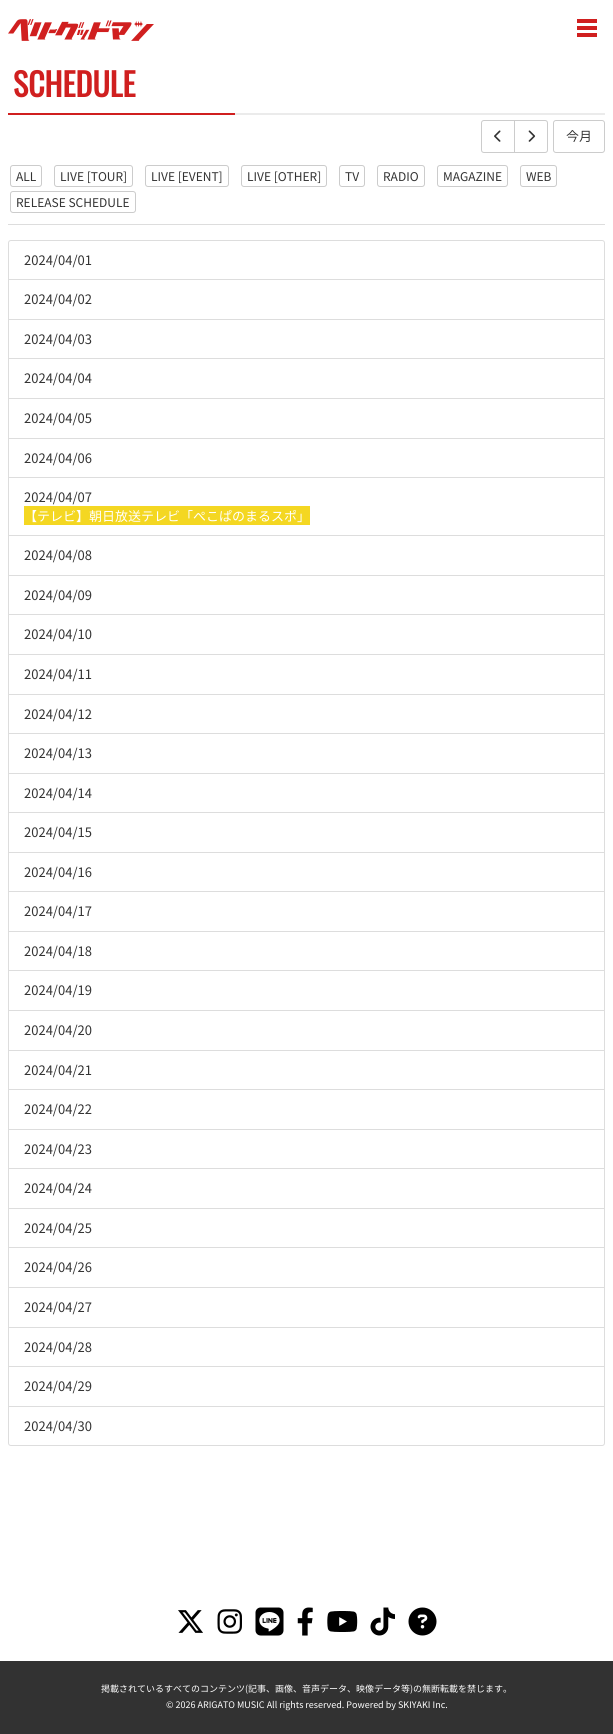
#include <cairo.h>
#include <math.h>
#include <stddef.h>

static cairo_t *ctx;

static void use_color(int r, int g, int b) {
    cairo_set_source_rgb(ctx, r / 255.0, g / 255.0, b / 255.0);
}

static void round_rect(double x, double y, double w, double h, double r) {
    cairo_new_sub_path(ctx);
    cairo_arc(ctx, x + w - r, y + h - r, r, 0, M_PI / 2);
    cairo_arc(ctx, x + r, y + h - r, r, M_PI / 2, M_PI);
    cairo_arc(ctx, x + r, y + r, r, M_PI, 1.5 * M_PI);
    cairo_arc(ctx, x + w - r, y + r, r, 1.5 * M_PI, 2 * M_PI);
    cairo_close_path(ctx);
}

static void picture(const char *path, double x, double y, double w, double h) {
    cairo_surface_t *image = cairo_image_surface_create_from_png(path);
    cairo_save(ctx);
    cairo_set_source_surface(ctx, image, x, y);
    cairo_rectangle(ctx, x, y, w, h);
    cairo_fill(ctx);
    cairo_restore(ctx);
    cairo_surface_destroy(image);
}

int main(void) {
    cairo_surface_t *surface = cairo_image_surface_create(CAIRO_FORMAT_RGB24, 613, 1734);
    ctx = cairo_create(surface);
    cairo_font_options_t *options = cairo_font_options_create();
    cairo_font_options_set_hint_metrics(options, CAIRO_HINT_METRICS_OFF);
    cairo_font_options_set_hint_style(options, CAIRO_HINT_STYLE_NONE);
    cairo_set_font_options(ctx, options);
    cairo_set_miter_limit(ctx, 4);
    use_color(255, 255, 255);
    cairo_paint(ctx);
    picture("img1.png", 8, 19, 146, 22);
    use_color(208, 31, 31);
    cairo_rectangle(ctx, 577, 19, 20, 4);
    cairo_fill(ctx);
    cairo_rectangle(ctx, 577, 26, 20, 4);
    cairo_fill(ctx);
    cairo_rectangle(ctx, 577, 33, 20, 4);
    cairo_fill(ctx);
    cairo_select_font_face(ctx, "Oswald", CAIRO_FONT_SLANT_NORMAL, CAIRO_FONT_WEIGHT_BOLD);
    cairo_set_font_size(ctx, 32);
    cairo_move_to(ctx, 13, 97);
    cairo_show_text(ctx, "SCHEDULE");
    cairo_rectangle(ctx, 8, 113, 227, 2);
    cairo_fill(ctx);
    use_color(235, 235, 235);
    cairo_rectangle(ctx, 235, 113, 370, 2);
    cairo_fill(ctx);
    cairo_new_path(ctx);
    cairo_move_to(ctx, 484, 120.5);
    cairo_line_to(ctx, 514.5, 120.5);
    cairo_line_to(ctx, 514.5, 152.5);
    cairo_line_to(ctx, 484, 152.5);
    cairo_curve_to(ctx, 482.5, 152.5, 481.5, 151.5, 481.5, 150);
    cairo_line_to(ctx, 481.5, 123);
    cairo_curve_to(ctx, 481.5, 121.5, 482.5, 120.5, 484, 120.5);
    cairo_close_path(ctx);
    use_color(204, 204, 204);
    cairo_set_line_width(ctx, 1);
    cairo_stroke(ctx);
    picture("img2.png", 494, 130, 7, 12);
    use_color(255, 255, 255);
    cairo_new_path(ctx);
    cairo_move_to(ctx, 514.5, 120.5);
    cairo_line_to(ctx, 545, 120.5);
    cairo_curve_to(ctx, 546.5, 120.5, 547.5, 121.5, 547.5, 123);
    cairo_line_to(ctx, 547.5, 150);
    cairo_curve_to(ctx, 547.5, 151.5, 546.5, 152.5, 545, 152.5);
    cairo_line_to(ctx, 514.5, 152.5);
    cairo_close_path(ctx);
    cairo_fill_preserve(ctx);
    use_color(204, 204, 204);
    cairo_stroke(ctx);
    picture("img3.png", 528, 130, 8, 12);
    round_rect(553.5, 120.5, 51, 32, 2.5);
    cairo_stroke(ctx);
    cairo_select_font_face(ctx, "Noto Sans JP", CAIRO_FONT_SLANT_NORMAL, CAIRO_FONT_WEIGHT_NORMAL);
    cairo_set_font_size(ctx, 13);
    use_color(51, 51, 51);
    cairo_move_to(ctx, 566, 141);
    cairo_show_text(ctx, "今月");
    use_color(221, 221, 221);
    cairo_rectangle(ctx, 8, 224, 597, 1);
    cairo_fill(ctx);
    round_rect(10.5, 165.5, 31, 21, 2.5);
    use_color(204, 204, 204);
    cairo_stroke(ctx);
    cairo_set_font_size(ctx, 12);
    use_color(51, 51, 51);
    cairo_move_to(ctx, 16, 181);
    cairo_show_text(ctx, "ALL");
    round_rect(54.5, 165.5, 78, 21, 2.5);
    use_color(204, 204, 204);
    cairo_stroke(ctx);
    use_color(51, 51, 51);
    cairo_move_to(ctx, 60, 181);
    cairo_show_text(ctx, "LIVE [TOUR]");
    round_rect(145.5, 165.5, 83, 21, 2.5);
    use_color(204, 204, 204);
    cairo_stroke(ctx);
    use_color(51, 51, 51);
    cairo_move_to(ctx, 151, 181);
    cairo_show_text(ctx, "LIVE [EVENT]");
    round_rect(241.5, 165.5, 85, 21, 2.5);
    use_color(204, 204, 204);
    cairo_stroke(ctx);
    use_color(51, 51, 51);
    cairo_move_to(ctx, 247, 181);
    cairo_show_text(ctx, "LIVE [OTHER]");
    round_rect(339.5, 165.5, 25, 21, 2.5);
    use_color(204, 204, 204);
    cairo_stroke(ctx);
    use_color(51, 51, 51);
    cairo_move_to(ctx, 345, 181);
    cairo_show_text(ctx, "TV");
    round_rect(377.5, 165.5, 47, 21, 2.5);
    use_color(204, 204, 204);
    cairo_stroke(ctx);
    use_color(51, 51, 51);
    cairo_move_to(ctx, 383, 181);
    cairo_show_text(ctx, "RADIO");
    round_rect(437.5, 165.5, 70, 21, 2.5);
    use_color(204, 204, 204);
    cairo_stroke(ctx);
    use_color(51, 51, 51);
    cairo_move_to(ctx, 443, 181);
    cairo_show_text(ctx, "MAGAZINE");
    round_rect(520.5, 165.5, 36, 21, 2.5);
    use_color(204, 204, 204);
    cairo_stroke(ctx);
    use_color(51, 51, 51);
    cairo_move_to(ctx, 526, 181);
    cairo_show_text(ctx, "WEB");
    round_rect(10.5, 191.5, 125, 21, 2.5);
    use_color(204, 204, 204);
    cairo_stroke(ctx);
    use_color(51, 51, 51);
    cairo_move_to(ctx, 16, 207);
    cairo_show_text(ctx, "RELEASE SCHEDULE");
    cairo_new_path(ctx);
    cairo_move_to(ctx, 11, 240.5);
    cairo_line_to(ctx, 602, 240.5);
    cairo_curve_to(ctx, 603.5, 240.5, 604.5, 241.5, 604.5, 243);
    cairo_line_to(ctx, 604.5, 279.5);
    cairo_line_to(ctx, 8.5, 279.5);
    cairo_line_to(ctx, 8.5, 243);
    cairo_curve_to(ctx, 8.5, 241.5, 9.5, 240.5, 11, 240.5);
    cairo_close_path(ctx);
    use_color(221, 221, 221);
    cairo_stroke(ctx);
    cairo_set_font_size(ctx, 13);
    use_color(51, 51, 51);
    cairo_move_to(ctx, 24, 265);
    cairo_show_text(ctx, "2024/04/01");
    cairo_rectangle(ctx, 8.5, 279.5, 596, 40);
    use_color(221, 221, 221);
    cairo_stroke(ctx);
    use_color(51, 51, 51);
    cairo_move_to(ctx, 24, 304);
    cairo_show_text(ctx, "2024/04/02");
    cairo_rectangle(ctx, 8.5, 319.5, 596, 39);
    use_color(221, 221, 221);
    cairo_stroke(ctx);
    use_color(51, 51, 51);
    cairo_move_to(ctx, 24, 344);
    cairo_show_text(ctx, "2024/04/03");
    cairo_rectangle(ctx, 8.5, 358.5, 596, 40);
    use_color(221, 221, 221);
    cairo_stroke(ctx);
    use_color(51, 51, 51);
    cairo_move_to(ctx, 24, 383);
    cairo_show_text(ctx, "2024/04/04");
    cairo_rectangle(ctx, 8.5, 398.5, 596, 40);
    use_color(221, 221, 221);
    cairo_stroke(ctx);
    use_color(51, 51, 51);
    cairo_move_to(ctx, 24, 423);
    cairo_show_text(ctx, "2024/04/05");
    cairo_rectangle(ctx, 8.5, 438.5, 596, 39);
    use_color(221, 221, 221);
    cairo_stroke(ctx);
    use_color(51, 51, 51);
    cairo_move_to(ctx, 24, 463);
    cairo_show_text(ctx, "2024/04/06");
    cairo_rectangle(ctx, 8.5, 477.5, 596, 58);
    use_color(221, 221, 221);
    cairo_stroke(ctx);
    use_color(51, 51, 51);
    cairo_move_to(ctx, 24, 502);
    cairo_show_text(ctx, "2024/04/07");
    use_color(244, 215, 34);
    cairo_rectangle(ctx, 24, 506, 286, 19);
    cairo_fill(ctx);
    use_color(255, 255, 255);
    cairo_move_to(ctx, 24, 521);
    cairo_show_text(ctx, "【テレビ】朝日放送テレビ「ぺこぱのまるスポ」");
    cairo_rectangle(ctx, 8.5, 535.5, 596, 40);
    use_color(221, 221, 221);
    cairo_stroke(ctx);
    use_color(51, 51, 51);
    cairo_move_to(ctx, 24, 560);
    cairo_show_text(ctx, "2024/04/08");
    cairo_rectangle(ctx, 8.5, 575.5, 596, 39);
    use_color(221, 221, 221);
    cairo_stroke(ctx);
    use_color(51, 51, 51);
    cairo_move_to(ctx, 24, 600);
    cairo_show_text(ctx, "2024/04/09");
    cairo_rectangle(ctx, 8.5, 614.5, 596, 40);
    use_color(221, 221, 221);
    cairo_stroke(ctx);
    use_color(51, 51, 51);
    cairo_move_to(ctx, 24, 639);
    cairo_show_text(ctx, "2024/04/10");
    cairo_rectangle(ctx, 8.5, 654.5, 596, 40);
    use_color(221, 221, 221);
    cairo_stroke(ctx);
    use_color(51, 51, 51);
    cairo_move_to(ctx, 24, 679);
    cairo_show_text(ctx, "2024/04/11");
    cairo_rectangle(ctx, 8.5, 694.5, 596, 39);
    use_color(221, 221, 221);
    cairo_stroke(ctx);
    use_color(51, 51, 51);
    cairo_move_to(ctx, 24, 719);
    cairo_show_text(ctx, "2024/04/12");
    cairo_rectangle(ctx, 8.5, 733.5, 596, 40);
    use_color(221, 221, 221);
    cairo_stroke(ctx);
    use_color(51, 51, 51);
    cairo_move_to(ctx, 24, 758);
    cairo_show_text(ctx, "2024/04/13");
    cairo_rectangle(ctx, 8.5, 773.5, 596, 39);
    use_color(221, 221, 221);
    cairo_stroke(ctx);
    use_color(51, 51, 51);
    cairo_move_to(ctx, 24, 798);
    cairo_show_text(ctx, "2024/04/14");
    cairo_rectangle(ctx, 8.5, 812.5, 596, 40);
    use_color(221, 221, 221);
    cairo_stroke(ctx);
    use_color(51, 51, 51);
    cairo_move_to(ctx, 24, 837);
    cairo_show_text(ctx, "2024/04/15");
    cairo_rectangle(ctx, 8.5, 852.5, 596, 39);
    use_color(221, 221, 221);
    cairo_stroke(ctx);
    use_color(51, 51, 51);
    cairo_move_to(ctx, 24, 877);
    cairo_show_text(ctx, "2024/04/16");
    cairo_rectangle(ctx, 8.5, 891.5, 596, 40);
    use_color(221, 221, 221);
    cairo_stroke(ctx);
    use_color(51, 51, 51);
    cairo_move_to(ctx, 24, 916);
    cairo_show_text(ctx, "2024/04/17");
    cairo_rectangle(ctx, 8.5, 931.5, 596, 39);
    use_color(221, 221, 221);
    cairo_stroke(ctx);
    use_color(51, 51, 51);
    cairo_move_to(ctx, 24, 956);
    cairo_show_text(ctx, "2024/04/18");
    cairo_rectangle(ctx, 8.5, 970.5, 596, 40);
    use_color(221, 221, 221);
    cairo_stroke(ctx);
    use_color(51, 51, 51);
    cairo_move_to(ctx, 24, 995);
    cairo_show_text(ctx, "2024/04/19");
    cairo_rectangle(ctx, 8.5, 1010.5, 596, 40);
    use_color(221, 221, 221);
    cairo_stroke(ctx);
    use_color(51, 51, 51);
    cairo_move_to(ctx, 24, 1035);
    cairo_show_text(ctx, "2024/04/20");
    cairo_rectangle(ctx, 8.5, 1050.5, 596, 39);
    use_color(221, 221, 221);
    cairo_stroke(ctx);
    use_color(51, 51, 51);
    cairo_move_to(ctx, 24, 1075);
    cairo_show_text(ctx, "2024/04/21");
    cairo_rectangle(ctx, 8.5, 1089.5, 596, 40);
    use_color(221, 221, 221);
    cairo_stroke(ctx);
    use_color(51, 51, 51);
    cairo_move_to(ctx, 24, 1114);
    cairo_show_text(ctx, "2024/04/22");
    cairo_rectangle(ctx, 8.5, 1129.5, 596, 39);
    use_color(221, 221, 221);
    cairo_stroke(ctx);
    use_color(51, 51, 51);
    cairo_move_to(ctx, 24, 1154);
    cairo_show_text(ctx, "2024/04/23");
    cairo_rectangle(ctx, 8.5, 1168.5, 596, 40);
    use_color(221, 221, 221);
    cairo_stroke(ctx);
    use_color(51, 51, 51);
    cairo_move_to(ctx, 24, 1193);
    cairo_show_text(ctx, "2024/04/24");
    cairo_rectangle(ctx, 8.5, 1208.5, 596, 39);
    use_color(221, 221, 221);
    cairo_stroke(ctx);
    use_color(51, 51, 51);
    cairo_move_to(ctx, 24, 1233);
    cairo_show_text(ctx, "2024/04/25");
    cairo_rectangle(ctx, 8.5, 1247.5, 596, 40);
    use_color(221, 221, 221);
    cairo_stroke(ctx);
    use_color(51, 51, 51);
    cairo_move_to(ctx, 24, 1272);
    cairo_show_text(ctx, "2024/04/26");
    cairo_rectangle(ctx, 8.5, 1287.5, 596, 40);
    use_color(221, 221, 221);
    cairo_stroke(ctx);
    use_color(51, 51, 51);
    cairo_move_to(ctx, 24, 1312);
    cairo_show_text(ctx, "2024/04/27");
    cairo_rectangle(ctx, 8.5, 1327.5, 596, 39);
    use_color(221, 221, 221);
    cairo_stroke(ctx);
    use_color(51, 51, 51);
    cairo_move_to(ctx, 24, 1352);
    cairo_show_text(ctx, "2024/04/28");
    cairo_rectangle(ctx, 8.5, 1366.5, 596, 40);
    use_color(221, 221, 221);
    cairo_stroke(ctx);
    use_color(51, 51, 51);
    cairo_move_to(ctx, 24, 1391);
    cairo_show_text(ctx, "2024/04/29");
    use_color(255, 255, 255);
    cairo_new_path(ctx);
    cairo_move_to(ctx, 8.5, 1406.5);
    cairo_line_to(ctx, 604.5, 1406.5);
    cairo_line_to(ctx, 604.5, 1443);
    cairo_curve_to(ctx, 604.5, 1444.5, 603.5, 1445.5, 602, 1445.5);
    cairo_line_to(ctx, 11, 1445.5);
    cairo_curve_to(ctx, 9.5, 1445.5, 8.5, 1444.5, 8.5, 1443);
    cairo_close_path(ctx);
    cairo_fill_preserve(ctx);
    use_color(221, 221, 221);
    cairo_stroke(ctx);
    use_color(51, 51, 51);
    cairo_move_to(ctx, 24, 1431);
    cairo_show_text(ctx, "2024/04/30");
    use_color(50, 50, 50);
    cairo_rectangle(ctx, 0, 1661, 613, 73);
    cairo_fill(ctx);
    picture("img4.png", 178, 1610, 25, 23);
    picture("img5.png", 217, 1609, 25, 25);
    picture("img6.png", 255, 1607, 29, 29);
    picture("img7.png", 297, 1607, 16, 29);
    picture("img8.png", 327, 1611, 31, 21);
    picture("img9.png", 370, 1607, 25, 29);
    picture("img10.png", 408, 1607, 29, 29);
    cairo_set_font_size(ctx, 9);
    use_color(255, 255, 255);
    cairo_move_to(ctx, 101, 1692);
    cairo_show_text(ctx, "掲載されているすべてのコンテンツ(記事、画像、音声データ、映像データ等)の無断転載を禁じます。");
    cairo_move_to(ctx, 166, 1708);
    cairo_show_text(ctx, "© 2026 ARIGATO MUSIC All rights reserved. Powered by SKIYAKI Inc.");
    cairo_surface_write_to_png(surface, "result.png");
    cairo_font_options_destroy(options);
    cairo_destroy(ctx);
    cairo_surface_destroy(surface);
    return 0;
}
